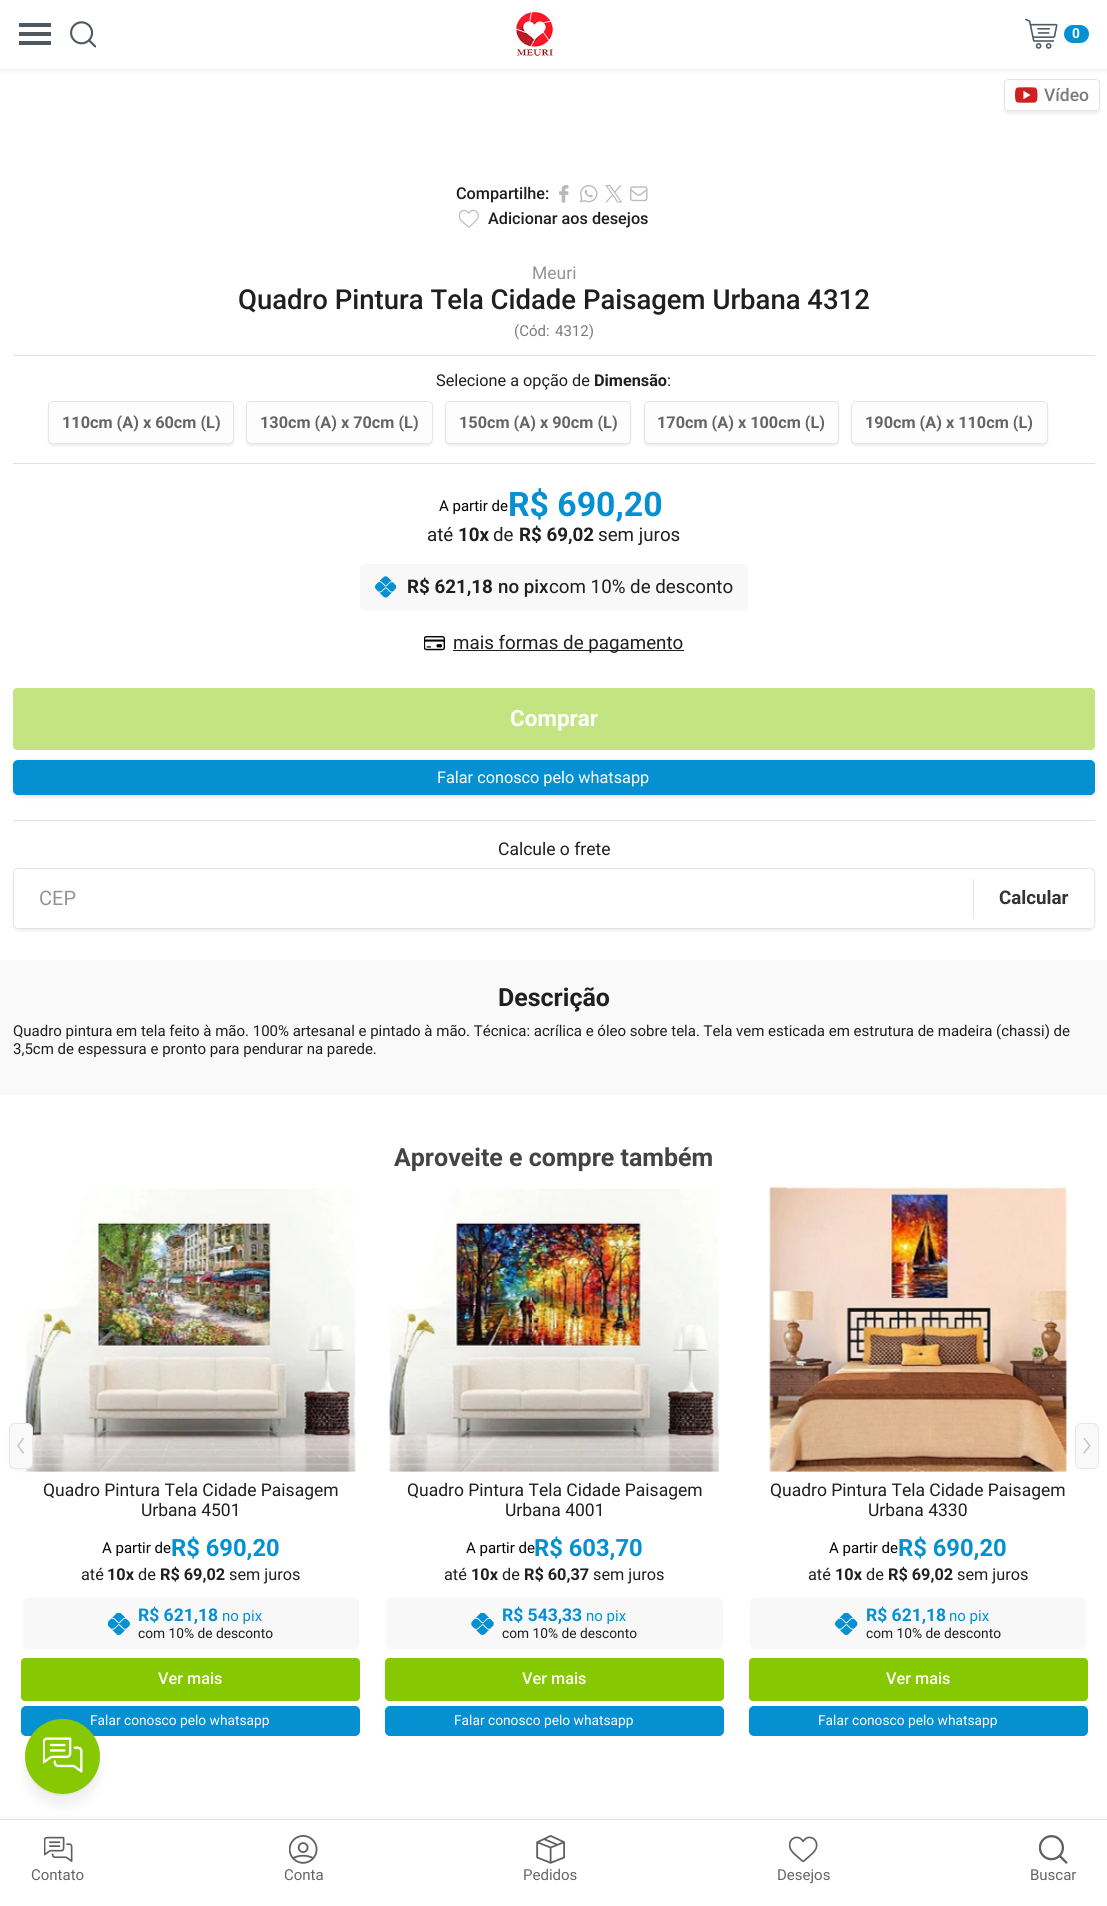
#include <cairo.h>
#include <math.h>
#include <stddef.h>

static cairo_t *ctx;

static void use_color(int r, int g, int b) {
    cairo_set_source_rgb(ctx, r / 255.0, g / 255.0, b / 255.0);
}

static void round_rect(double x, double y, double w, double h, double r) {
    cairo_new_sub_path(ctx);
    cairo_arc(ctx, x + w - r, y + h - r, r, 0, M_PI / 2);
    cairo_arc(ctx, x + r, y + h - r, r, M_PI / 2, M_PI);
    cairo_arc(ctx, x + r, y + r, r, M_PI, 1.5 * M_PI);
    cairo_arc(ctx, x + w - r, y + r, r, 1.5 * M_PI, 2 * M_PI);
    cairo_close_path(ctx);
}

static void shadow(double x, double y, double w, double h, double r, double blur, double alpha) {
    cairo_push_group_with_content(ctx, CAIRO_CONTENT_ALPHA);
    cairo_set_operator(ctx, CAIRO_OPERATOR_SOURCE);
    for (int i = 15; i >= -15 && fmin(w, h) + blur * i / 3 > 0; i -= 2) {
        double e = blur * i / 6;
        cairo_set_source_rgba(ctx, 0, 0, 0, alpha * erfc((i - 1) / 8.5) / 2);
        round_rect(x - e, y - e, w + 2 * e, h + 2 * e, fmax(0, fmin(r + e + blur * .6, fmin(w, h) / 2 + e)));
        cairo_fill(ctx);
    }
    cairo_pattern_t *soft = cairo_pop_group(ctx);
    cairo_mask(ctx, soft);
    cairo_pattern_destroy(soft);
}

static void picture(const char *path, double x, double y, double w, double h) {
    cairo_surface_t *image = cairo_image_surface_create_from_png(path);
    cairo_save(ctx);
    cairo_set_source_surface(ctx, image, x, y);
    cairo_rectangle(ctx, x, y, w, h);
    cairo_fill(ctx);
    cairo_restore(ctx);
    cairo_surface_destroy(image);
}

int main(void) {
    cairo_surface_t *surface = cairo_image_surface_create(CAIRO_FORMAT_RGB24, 1107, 1906);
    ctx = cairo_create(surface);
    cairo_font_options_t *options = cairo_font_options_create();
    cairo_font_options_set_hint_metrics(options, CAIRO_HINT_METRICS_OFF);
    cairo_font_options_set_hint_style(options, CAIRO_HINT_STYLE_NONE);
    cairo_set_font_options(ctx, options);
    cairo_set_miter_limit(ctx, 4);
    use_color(255, 255, 255);
    cairo_paint(ctx);
    use_color(82, 82, 82);
    shadow(0, 1, 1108, 69, 0, 2.5, 0.13);
    use_color(255, 255, 255);
    cairo_rectangle(ctx, 0, 0, 1107, 68);
    cairo_fill(ctx);
    use_color(252, 252, 252);
    cairo_rectangle(ctx, 0, 68, 1107, 1);
    cairo_fill(ctx);
    use_color(81, 89, 96);
    cairo_rectangle(ctx, 19, 41, 32, 4);
    cairo_fill(ctx);
    cairo_rectangle(ctx, 19, 32, 32, 4);
    cairo_fill(ctx);
    cairo_rectangle(ctx, 19, 23, 32, 4);
    cairo_fill(ctx);
    picture("img1.png", 70, 21, 26, 27);
    picture("img2.png", 515, 12, 39, 44);
    picture("img3.png", 1025, 18, 33, 31);
    use_color(4, 144, 209);
    round_rect(1064, 25, 25, 18, 9);
    cairo_fill(ctx);
    cairo_select_font_face(ctx, "Roboto", CAIRO_FONT_SLANT_NORMAL, CAIRO_FONT_WEIGHT_BOLD);
    cairo_set_font_size(ctx, 13.75);
    use_color(255, 255, 255);
    cairo_move_to(ctx, 1072, 38);
    cairo_show_text(ctx, "0");
    cairo_save(ctx);
    cairo_set_fill_rule(ctx, CAIRO_FILL_RULE_EVEN_ODD);
    cairo_new_path(ctx);
    cairo_move_to(ctx, 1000, 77);
    cairo_line_to(ctx, 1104, 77);
    cairo_line_to(ctx, 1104, 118);
    cairo_line_to(ctx, 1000, 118);
    cairo_close_path(ctx);
    cairo_move_to(ctx, 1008, 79);
    cairo_line_to(ctx, 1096, 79);
    cairo_curve_to(ctx, 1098, 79, 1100, 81, 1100, 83);
    cairo_line_to(ctx, 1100, 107);
    cairo_curve_to(ctx, 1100, 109, 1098, 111, 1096, 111);
    cairo_line_to(ctx, 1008, 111);
    cairo_curve_to(ctx, 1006, 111, 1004, 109, 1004, 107);
    cairo_line_to(ctx, 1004, 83);
    cairo_curve_to(ctx, 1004, 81, 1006, 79, 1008, 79);
    cairo_close_path(ctx);
    cairo_clip(ctx);
    use_color(205, 205, 205);
    shadow(1004, 81, 96, 33, 4, 1, 0.35);
    cairo_restore(ctx);
    round_rect(1004.5, 79.5, 95, 31, 3.5);
    use_color(229, 229, 229);
    cairo_set_line_width(ctx, 1);
    cairo_stroke(ctx);
    picture("img4.png", 1015, 87, 23, 16);
    cairo_select_font_face(ctx, "Roboto Medium", CAIRO_FONT_SLANT_NORMAL, CAIRO_FONT_WEIGHT_NORMAL);
    cairo_set_font_size(ctx, 17.5);
    use_color(123, 123, 123);
    cairo_move_to(ctx, 1044, 101);
    cairo_show_text(ctx, "Vídeo");
    cairo_set_font_size(ctx, 16.25);
    use_color(32, 31, 31);
    cairo_move_to(ctx, 456, 199);
    cairo_show_text(ctx, "Compartilhe:");
    picture("img5.png", 559, 185, 10, 18);
    picture("img6.png", 580, 185, 18, 18);
    picture("img7.png", 605, 185, 18, 18);
    picture("img8.png", 630, 186, 18, 16);
    picture("img9.png", 459, 209, 20, 19);
    cairo_move_to(ctx, 488, 224);
    cairo_show_text(ctx, "Adicionar aos desejos");
    use_color(225, 225, 225);
    cairo_rectangle(ctx, 13, 355, 1082, 1);
    cairo_fill(ctx);
    cairo_select_font_face(ctx, "Roboto", CAIRO_FONT_SLANT_NORMAL, CAIRO_FONT_WEIGHT_NORMAL);
    cairo_set_font_size(ctx, 17.5);
    use_color(148, 148, 148);
    cairo_move_to(ctx, 532, 279);
    cairo_show_text(ctx, "Meuri");
    cairo_select_font_face(ctx, "Roboto Medium", CAIRO_FONT_SLANT_NORMAL, CAIRO_FONT_WEIGHT_NORMAL);
    cairo_set_font_size(ctx, 27.5);
    use_color(32, 31, 31);
    cairo_move_to(ctx, 238, 309);
    cairo_show_text(ctx, "Quadro Pintura Tela Cidade Paisagem Urbana 4312");
    cairo_select_font_face(ctx, "Roboto", CAIRO_FONT_SLANT_NORMAL, CAIRO_FONT_WEIGHT_NORMAL);
    cairo_set_font_size(ctx, 15);
    use_color(123, 123, 123);
    cairo_move_to(ctx, 514, 336);
    cairo_show_text(ctx, "(Cód:");
    cairo_move_to(ctx, 555, 336);
    cairo_show_text(ctx, "4312)");
    use_color(225, 225, 225);
    cairo_rectangle(ctx, 13, 463, 1082, 1);
    cairo_fill(ctx);
    cairo_set_font_size(ctx, 16.25);
    use_color(32, 31, 31);
    cairo_move_to(ctx, 436, 386);
    cairo_show_text(ctx, "Selecione a opção de");
    cairo_select_font_face(ctx, "Roboto", CAIRO_FONT_SLANT_NORMAL, CAIRO_FONT_WEIGHT_BOLD);
    cairo_move_to(ctx, 594, 386);
    cairo_show_text(ctx, "Dimensão");
    cairo_select_font_face(ctx, "Roboto", CAIRO_FONT_SLANT_NORMAL, CAIRO_FONT_WEIGHT_NORMAL);
    cairo_move_to(ctx, 667, 386);
    cairo_show_text(ctx, ":");
    use_color(205, 205, 205);
    shadow(48, 404, 186, 42, 5, 1, 0.35);
    use_color(253, 253, 253);
    round_rect(48.5, 401.5, 185, 42, 4.5);
    cairo_fill_preserve(ctx);
    use_color(230, 230, 230);
    cairo_stroke(ctx);
    cairo_select_font_face(ctx, "Roboto", CAIRO_FONT_SLANT_NORMAL, CAIRO_FONT_WEIGHT_BOLD);
    use_color(101, 101, 101);
    cairo_move_to(ctx, 62, 428);
    cairo_show_text(ctx, "110cm (A) x 60cm (L)");
    use_color(205, 205, 205);
    shadow(246, 404, 187, 42, 5, 1, 0.35);
    use_color(253, 253, 253);
    round_rect(246.5, 401.5, 186, 42, 4.5);
    cairo_fill_preserve(ctx);
    use_color(230, 230, 230);
    cairo_stroke(ctx);
    use_color(101, 101, 101);
    cairo_move_to(ctx, 260, 428);
    cairo_show_text(ctx, "130cm (A) x 70cm (L)");
    use_color(205, 205, 205);
    shadow(445, 404, 186, 42, 5, 1, 0.35);
    use_color(253, 253, 253);
    round_rect(445.5, 401.5, 185, 42, 4.5);
    cairo_fill_preserve(ctx);
    use_color(230, 230, 230);
    cairo_stroke(ctx);
    use_color(101, 101, 101);
    cairo_move_to(ctx, 459, 428);
    cairo_show_text(ctx, "150cm (A) x 90cm (L)");
    use_color(205, 205, 205);
    shadow(644, 404, 195, 42, 5, 1, 0.35);
    use_color(253, 253, 253);
    round_rect(644.5, 401.5, 194, 42, 4.5);
    cairo_fill_preserve(ctx);
    use_color(230, 230, 230);
    cairo_stroke(ctx);
    use_color(101, 101, 101);
    cairo_move_to(ctx, 657, 428);
    cairo_show_text(ctx, "170cm (A) x 100cm (L)");
    use_color(205, 205, 205);
    shadow(851, 404, 197, 42, 5, 1, 0.35);
    use_color(253, 253, 253);
    round_rect(851.5, 401.5, 196, 42, 4.5);
    cairo_fill_preserve(ctx);
    use_color(230, 230, 230);
    cairo_stroke(ctx);
    use_color(101, 101, 101);
    cairo_move_to(ctx, 865, 428);
    cairo_show_text(ctx, "190cm (A) x 110cm (L)");
    cairo_select_font_face(ctx, "Roboto", CAIRO_FONT_SLANT_NORMAL, CAIRO_FONT_WEIGHT_NORMAL);
    cairo_set_font_size(ctx, 15);
    use_color(0, 0, 0);
    cairo_move_to(ctx, 439, 511);
    cairo_show_text(ctx, "A partir de");
    cairo_select_font_face(ctx, "Roboto", CAIRO_FONT_SLANT_NORMAL, CAIRO_FONT_WEIGHT_BOLD);
    cairo_set_font_size(ctx, 33.75);
    use_color(4, 144, 209);
    cairo_move_to(ctx, 508, 516);
    cairo_show_text(ctx, "R$ 690,20");
    cairo_select_font_face(ctx, "Roboto", CAIRO_FONT_SLANT_NORMAL, CAIRO_FONT_WEIGHT_NORMAL);
    cairo_set_font_size(ctx, 18.75);
    use_color(32, 31, 31);
    cairo_move_to(ctx, 427, 541);
    cairo_show_text(ctx, "até");
    cairo_select_font_face(ctx, "Roboto", CAIRO_FONT_SLANT_NORMAL, CAIRO_FONT_WEIGHT_BOLD);
    cairo_move_to(ctx, 458, 541);
    cairo_show_text(ctx, "10x");
    cairo_select_font_face(ctx, "Roboto", CAIRO_FONT_SLANT_NORMAL, CAIRO_FONT_WEIGHT_NORMAL);
    cairo_move_to(ctx, 493, 541);
    cairo_show_text(ctx, "de");
    cairo_select_font_face(ctx, "Roboto", CAIRO_FONT_SLANT_NORMAL, CAIRO_FONT_WEIGHT_BOLD);
    cairo_move_to(ctx, 519, 541);
    cairo_show_text(ctx, "R$ 69,02");
    cairo_select_font_face(ctx, "Roboto", CAIRO_FONT_SLANT_NORMAL, CAIRO_FONT_WEIGHT_NORMAL);
    cairo_move_to(ctx, 598, 541);
    cairo_show_text(ctx, "sem juros");
    use_color(248, 248, 248);
    round_rect(360, 564, 388, 46, 5);
    cairo_fill(ctx);
    picture("img10.png", 375, 576, 21, 22);
    cairo_select_font_face(ctx, "Roboto", CAIRO_FONT_SLANT_NORMAL, CAIRO_FONT_WEIGHT_BOLD);
    use_color(32, 31, 31);
    cairo_move_to(ctx, 407, 593);
    cairo_show_text(ctx, "R$ 621,18");
    cairo_select_font_face(ctx, "Roboto Medium", CAIRO_FONT_SLANT_NORMAL, CAIRO_FONT_WEIGHT_NORMAL);
    cairo_move_to(ctx, 498, 593);
    cairo_show_text(ctx, "no pix");
    cairo_select_font_face(ctx, "Roboto", CAIRO_FONT_SLANT_NORMAL, CAIRO_FONT_WEIGHT_NORMAL);
    cairo_move_to(ctx, 549, 593);
    cairo_show_text(ctx, "com 10% de desconto");
    picture("img11.png", 424, 636, 21, 15);
    cairo_rectangle(ctx, 453, 650, 231, 1);
    cairo_fill(ctx);
    cairo_move_to(ctx, 453, 649);
    cairo_show_text(ctx, "mais formas de pagamento");
    use_color(195, 228, 129);
    round_rect(13, 688, 1082, 62, 4);
    cairo_fill(ctx);
    cairo_select_font_face(ctx, "Roboto", CAIRO_FONT_SLANT_NORMAL, CAIRO_FONT_WEIGHT_BOLD);
    cairo_set_font_size(ctx, 22.5);
    use_color(255, 255, 255);
    cairo_move_to(ctx, 510, 726);
    cairo_show_text(ctx, "Comprar");
    use_color(177, 177, 177);
    shadow(13, 761, 1082, 35, 5, 2.5, 0.46);
    use_color(4, 144, 209);
    round_rect(13.5, 760.5, 1081, 34, 4.5);
    cairo_fill_preserve(ctx);
    cairo_stroke(ctx);
    cairo_select_font_face(ctx, "Roboto", CAIRO_FONT_SLANT_NORMAL, CAIRO_FONT_WEIGHT_NORMAL);
    cairo_set_font_size(ctx, 16.25);
    use_color(255, 255, 255);
    cairo_move_to(ctx, 437, 783);
    cairo_show_text(ctx, "Falar conosco pelo whatsapp");
    use_color(225, 225, 225);
    cairo_rectangle(ctx, 13, 820, 1082, 1);
    cairo_fill(ctx);
    cairo_set_font_size(ctx, 17.5);
    use_color(32, 31, 31);
    cairo_move_to(ctx, 498, 855);
    cairo_show_text(ctx, "Calcule o frete");
    cairo_save(ctx);
    cairo_set_fill_rule(ctx, CAIRO_FILL_RULE_EVEN_ODD);
    cairo_new_path(ctx);
    cairo_move_to(ctx, 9, 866);
    cairo_line_to(ctx, 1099, 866);
    cairo_line_to(ctx, 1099, 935);
    cairo_line_to(ctx, 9, 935);
    cairo_close_path(ctx);
    cairo_move_to(ctx, 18, 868);
    cairo_line_to(ctx, 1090, 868);
    cairo_curve_to(ctx, 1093, 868, 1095, 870, 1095, 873);
    cairo_line_to(ctx, 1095, 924);
    cairo_curve_to(ctx, 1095, 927, 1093, 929, 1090, 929);
    cairo_line_to(ctx, 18, 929);
    cairo_curve_to(ctx, 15, 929, 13, 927, 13, 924);
    cairo_line_to(ctx, 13, 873);
    cairo_curve_to(ctx, 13, 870, 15, 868, 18, 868);
    cairo_close_path(ctx);
    cairo_clip(ctx);
    use_color(205, 205, 205);
    shadow(13, 870, 1082, 61, 5, 1, 0.35);
    cairo_restore(ctx);
    round_rect(13.5, 868.5, 1081, 60, 4.5);
    use_color(229, 229, 229);
    cairo_stroke(ctx);
    use_color(255, 255, 255);
    round_rect(14, 869, 959, 59, 4);
    cairo_fill(ctx);
    cairo_set_font_size(ctx, 20);
    use_color(148, 148, 148);
    cairo_move_to(ctx, 39, 905);
    cairo_show_text(ctx, "CEP");
    use_color(229, 229, 229);
    cairo_rectangle(ctx, 973, 879, 1, 39);
    cairo_fill(ctx);
    cairo_select_font_face(ctx, "Roboto", CAIRO_FONT_SLANT_NORMAL, CAIRO_FONT_WEIGHT_BOLD);
    cairo_set_font_size(ctx, 18.75);
    use_color(51, 51, 51);
    cairo_move_to(ctx, 999, 904);
    cairo_show_text(ctx, "Calcular");
    use_color(249, 249, 249);
    cairo_rectangle(ctx, 0, 960, 1107, 135);
    cairo_fill(ctx);
    cairo_set_font_size(ctx, 25);
    use_color(32, 31, 31);
    cairo_move_to(ctx, 498, 1006);
    cairo_show_text(ctx, "Descrição");
    cairo_select_font_face(ctx, "Roboto", CAIRO_FONT_SLANT_NORMAL, CAIRO_FONT_WEIGHT_NORMAL);
    cairo_set_font_size(ctx, 15);
    cairo_move_to(ctx, 13, 1036);
    cairo_show_text(ctx, "Quadro pintura em tela feito à mão. 100% artesanal e pintado à mão. Técnica: acrílica e óleo sobre tela. Tela vem esticada em estrutura de madeira (chassi) de");
    cairo_move_to(ctx, 13, 1054);
    cairo_show_text(ctx, "3,5cm de espessura e pronto para pendurar na parede.");
    cairo_select_font_face(ctx, "Roboto", CAIRO_FONT_SLANT_NORMAL, CAIRO_FONT_WEIGHT_BOLD);
    cairo_set_font_size(ctx, 25);
    use_color(68, 68, 68);
    cairo_move_to(ctx, 394, 1166);
    cairo_show_text(ctx, "Aproveite e compre também");
    picture("img14.png", 25, 1188, 331, 284);
    use_color(205, 205, 205);
    shadow(9, 1425, 24, 46, 6, 2.5, 0.16);
    use_color(249, 249, 249);
    round_rect(9.5, 1423.5, 23, 45, 5.5);
    cairo_fill_preserve(ctx);
    use_color(232, 232, 232);
    cairo_stroke(ctx);
    picture("img12.png", 17, 1438, 7, 16);
    use_color(249, 249, 249);
    round_rect(1075.5, 1423.5, 23, 45, 5.5);
    cairo_fill_preserve(ctx);
    use_color(232, 232, 232);
    cairo_stroke(ctx);
    picture("img13.png", 1083, 1438, 8, 16);
    cairo_select_font_face(ctx, "Roboto", CAIRO_FONT_SLANT_NORMAL, CAIRO_FONT_WEIGHT_NORMAL);
    cairo_set_font_size(ctx, 17.5);
    use_color(32, 31, 31);
    cairo_move_to(ctx, 43, 1496);
    cairo_show_text(ctx, "Quadro Pintura Tela Cidade Paisagem");
    cairo_move_to(ctx, 141, 1516);
    cairo_show_text(ctx, "Urbana 4501");
    cairo_set_font_size(ctx, 15);
    use_color(0, 0, 0);
    cairo_move_to(ctx, 102, 1553);
    cairo_show_text(ctx, "A partir de");
    cairo_select_font_face(ctx, "Roboto", CAIRO_FONT_SLANT_NORMAL, CAIRO_FONT_WEIGHT_BOLD);
    cairo_set_font_size(ctx, 23.75);
    use_color(4, 144, 209);
    cairo_move_to(ctx, 171, 1556);
    cairo_show_text(ctx, "R$ 690,20");
    cairo_select_font_face(ctx, "Roboto", CAIRO_FONT_SLANT_NORMAL, CAIRO_FONT_WEIGHT_NORMAL);
    cairo_set_font_size(ctx, 16.25);
    use_color(32, 31, 31);
    cairo_move_to(ctx, 81, 1580);
    cairo_show_text(ctx, "até");
    cairo_select_font_face(ctx, "Roboto", CAIRO_FONT_SLANT_NORMAL, CAIRO_FONT_WEIGHT_BOLD);
    cairo_move_to(ctx, 107, 1580);
    cairo_show_text(ctx, "10x");
    cairo_select_font_face(ctx, "Roboto", CAIRO_FONT_SLANT_NORMAL, CAIRO_FONT_WEIGHT_NORMAL);
    cairo_move_to(ctx, 138, 1580);
    cairo_show_text(ctx, "de");
    cairo_select_font_face(ctx, "Roboto", CAIRO_FONT_SLANT_NORMAL, CAIRO_FONT_WEIGHT_BOLD);
    cairo_move_to(ctx, 160, 1580);
    cairo_show_text(ctx, "R$ 69,02");
    cairo_select_font_face(ctx, "Roboto", CAIRO_FONT_SLANT_NORMAL, CAIRO_FONT_WEIGHT_NORMAL);
    cairo_move_to(ctx, 229, 1580);
    cairo_show_text(ctx, "sem juros");
    use_color(248, 248, 248);
    round_rect(23, 1598, 336, 51, 5);
    cairo_fill(ctx);
    picture("img15.png", 108, 1613, 22, 22);
    cairo_select_font_face(ctx, "Roboto", CAIRO_FONT_SLANT_NORMAL, CAIRO_FONT_WEIGHT_BOLD);
    cairo_set_font_size(ctx, 17.5);
    use_color(4, 144, 209);
    cairo_move_to(ctx, 138, 1621);
    cairo_show_text(ctx, "R$ 621,18");
    cairo_select_font_face(ctx, "Roboto", CAIRO_FONT_SLANT_NORMAL, CAIRO_FONT_WEIGHT_NORMAL);
    cairo_set_font_size(ctx, 15);
    cairo_move_to(ctx, 222, 1621);
    cairo_show_text(ctx, "no pix");
    cairo_set_font_size(ctx, 13.75);
    use_color(32, 31, 31);
    cairo_move_to(ctx, 138, 1638);
    cairo_show_text(ctx, "com 10% de desconto");
    use_color(134, 201, 3);
    round_rect(21, 1658, 339, 43, 4);
    cairo_fill(ctx);
    cairo_select_font_face(ctx, "Roboto Medium", CAIRO_FONT_SLANT_NORMAL, CAIRO_FONT_WEIGHT_NORMAL);
    cairo_set_font_size(ctx, 16.25);
    use_color(255, 255, 255);
    cairo_move_to(ctx, 158, 1684);
    cairo_show_text(ctx, "Ver mais");
    use_color(4, 144, 209);
    round_rect(21.5, 1706.5, 338, 29, 4.5);
    cairo_fill_preserve(ctx);
    cairo_stroke(ctx);
    cairo_select_font_face(ctx, "Roboto", CAIRO_FONT_SLANT_NORMAL, CAIRO_FONT_WEIGHT_NORMAL);
    cairo_set_font_size(ctx, 13.75);
    use_color(255, 255, 255);
    cairo_move_to(ctx, 90, 1725);
    cairo_show_text(ctx, "Falar conosco pelo whatsapp");
    picture("img16.png", 389, 1188, 331, 284);
    cairo_set_font_size(ctx, 17.5);
    use_color(32, 31, 31);
    cairo_move_to(ctx, 407, 1496);
    cairo_show_text(ctx, "Quadro Pintura Tela Cidade Paisagem");
    cairo_move_to(ctx, 505, 1516);
    cairo_show_text(ctx, "Urbana 4001");
    cairo_set_font_size(ctx, 15);
    use_color(0, 0, 0);
    cairo_move_to(ctx, 466, 1553);
    cairo_show_text(ctx, "A partir de");
    cairo_select_font_face(ctx, "Roboto", CAIRO_FONT_SLANT_NORMAL, CAIRO_FONT_WEIGHT_BOLD);
    cairo_set_font_size(ctx, 23.75);
    use_color(4, 144, 209);
    cairo_move_to(ctx, 534, 1556);
    cairo_show_text(ctx, "R$ 603,70");
    cairo_select_font_face(ctx, "Roboto", CAIRO_FONT_SLANT_NORMAL, CAIRO_FONT_WEIGHT_NORMAL);
    cairo_set_font_size(ctx, 16.25);
    use_color(32, 31, 31);
    cairo_move_to(ctx, 444, 1580);
    cairo_show_text(ctx, "até");
    cairo_select_font_face(ctx, "Roboto", CAIRO_FONT_SLANT_NORMAL, CAIRO_FONT_WEIGHT_BOLD);
    cairo_move_to(ctx, 471, 1580);
    cairo_show_text(ctx, "10x");
    cairo_select_font_face(ctx, "Roboto", CAIRO_FONT_SLANT_NORMAL, CAIRO_FONT_WEIGHT_NORMAL);
    cairo_move_to(ctx, 502, 1580);
    cairo_show_text(ctx, "de");
    cairo_select_font_face(ctx, "Roboto", CAIRO_FONT_SLANT_NORMAL, CAIRO_FONT_WEIGHT_BOLD);
    cairo_move_to(ctx, 524, 1580);
    cairo_show_text(ctx, "R$ 60,37");
    cairo_select_font_face(ctx, "Roboto", CAIRO_FONT_SLANT_NORMAL, CAIRO_FONT_WEIGHT_NORMAL);
    cairo_move_to(ctx, 593, 1580);
    cairo_show_text(ctx, "sem juros");
    use_color(248, 248, 248);
    round_rect(386, 1598, 337, 51, 5);
    cairo_fill(ctx);
    picture("img17.png", 471, 1613, 23, 22);
    cairo_select_font_face(ctx, "Roboto", CAIRO_FONT_SLANT_NORMAL, CAIRO_FONT_WEIGHT_BOLD);
    cairo_set_font_size(ctx, 17.5);
    use_color(4, 144, 209);
    cairo_move_to(ctx, 502, 1621);
    cairo_show_text(ctx, "R$ 543,33");
    cairo_select_font_face(ctx, "Roboto", CAIRO_FONT_SLANT_NORMAL, CAIRO_FONT_WEIGHT_NORMAL);
    cairo_set_font_size(ctx, 15);
    cairo_move_to(ctx, 586, 1621);
    cairo_show_text(ctx, "no pix");
    cairo_set_font_size(ctx, 13.75);
    use_color(32, 31, 31);
    cairo_move_to(ctx, 502, 1638);
    cairo_show_text(ctx, "com 10% de desconto");
    use_color(134, 201, 3);
    round_rect(385, 1658, 339, 43, 4);
    cairo_fill(ctx);
    cairo_select_font_face(ctx, "Roboto Medium", CAIRO_FONT_SLANT_NORMAL, CAIRO_FONT_WEIGHT_NORMAL);
    cairo_set_font_size(ctx, 16.25);
    use_color(255, 255, 255);
    cairo_move_to(ctx, 522, 1684);
    cairo_show_text(ctx, "Ver mais");
    use_color(4, 144, 209);
    round_rect(385.5, 1706.5, 338, 29, 4.5);
    cairo_fill_preserve(ctx);
    cairo_stroke(ctx);
    cairo_select_font_face(ctx, "Roboto", CAIRO_FONT_SLANT_NORMAL, CAIRO_FONT_WEIGHT_NORMAL);
    cairo_set_font_size(ctx, 13.75);
    use_color(255, 255, 255);
    cairo_move_to(ctx, 454, 1725);
    cairo_show_text(ctx, "Falar conosco pelo whatsapp");
    picture("img18.png", 769, 1186, 298, 286);
    cairo_set_font_size(ctx, 17.5);
    use_color(32, 31, 31);
    cairo_move_to(ctx, 770, 1496);
    cairo_show_text(ctx, "Quadro Pintura Tela Cidade Paisagem");
    cairo_move_to(ctx, 868, 1516);
    cairo_show_text(ctx, "Urbana 4330");
    cairo_set_font_size(ctx, 15);
    use_color(0, 0, 0);
    cairo_move_to(ctx, 829, 1553);
    cairo_show_text(ctx, "A partir de");
    cairo_select_font_face(ctx, "Roboto", CAIRO_FONT_SLANT_NORMAL, CAIRO_FONT_WEIGHT_BOLD);
    cairo_set_font_size(ctx, 23.75);
    use_color(4, 144, 209);
    cairo_move_to(ctx, 898, 1556);
    cairo_show_text(ctx, "R$ 690,20");
    cairo_select_font_face(ctx, "Roboto", CAIRO_FONT_SLANT_NORMAL, CAIRO_FONT_WEIGHT_NORMAL);
    cairo_set_font_size(ctx, 16.25);
    use_color(32, 31, 31);
    cairo_move_to(ctx, 808, 1580);
    cairo_show_text(ctx, "até");
    cairo_select_font_face(ctx, "Roboto", CAIRO_FONT_SLANT_NORMAL, CAIRO_FONT_WEIGHT_BOLD);
    cairo_move_to(ctx, 835, 1580);
    cairo_show_text(ctx, "10x");
    cairo_select_font_face(ctx, "Roboto", CAIRO_FONT_SLANT_NORMAL, CAIRO_FONT_WEIGHT_NORMAL);
    cairo_move_to(ctx, 866, 1580);
    cairo_show_text(ctx, "de");
    cairo_select_font_face(ctx, "Roboto", CAIRO_FONT_SLANT_NORMAL, CAIRO_FONT_WEIGHT_BOLD);
    cairo_move_to(ctx, 888, 1580);
    cairo_show_text(ctx, "R$ 69,02");
    cairo_select_font_face(ctx, "Roboto", CAIRO_FONT_SLANT_NORMAL, CAIRO_FONT_WEIGHT_NORMAL);
    cairo_move_to(ctx, 957, 1580);
    cairo_show_text(ctx, "sem juros");
    use_color(248, 248, 248);
    round_rect(750, 1598, 336, 51, 5);
    cairo_fill(ctx);
    picture("img19.png", 835, 1613, 23, 22);
    cairo_select_font_face(ctx, "Roboto", CAIRO_FONT_SLANT_NORMAL, CAIRO_FONT_WEIGHT_BOLD);
    cairo_set_font_size(ctx, 17.5);
    use_color(4, 144, 209);
    cairo_move_to(ctx, 866, 1621);
    cairo_show_text(ctx, "R$ 621,18");
    cairo_select_font_face(ctx, "Roboto", CAIRO_FONT_SLANT_NORMAL, CAIRO_FONT_WEIGHT_NORMAL);
    cairo_set_font_size(ctx, 15);
    cairo_move_to(ctx, 949, 1621);
    cairo_show_text(ctx, "no pix");
    cairo_set_font_size(ctx, 13.75);
    use_color(32, 31, 31);
    cairo_move_to(ctx, 866, 1638);
    cairo_show_text(ctx, "com 10% de desconto");
    use_color(134, 201, 3);
    round_rect(749, 1658, 339, 43, 4);
    cairo_fill(ctx);
    cairo_select_font_face(ctx, "Roboto Medium", CAIRO_FONT_SLANT_NORMAL, CAIRO_FONT_WEIGHT_NORMAL);
    cairo_set_font_size(ctx, 16.25);
    use_color(255, 255, 255);
    cairo_move_to(ctx, 886, 1684);
    cairo_show_text(ctx, "Ver mais");
    use_color(4, 144, 209);
    round_rect(749.5, 1706.5, 338, 29, 4.5);
    cairo_fill_preserve(ctx);
    cairo_stroke(ctx);
    cairo_select_font_face(ctx, "Roboto", CAIRO_FONT_SLANT_NORMAL, CAIRO_FONT_WEIGHT_NORMAL);
    cairo_set_font_size(ctx, 13.75);
    use_color(255, 255, 255);
    cairo_move_to(ctx, 818, 1725);
    cairo_show_text(ctx, "Falar conosco pelo whatsapp");
    use_color(103, 103, 103);
    shadow(25, 1731, 75, 75, 37.5, 5, 0.1);
    use_color(0, 0, 0);
    shadow(25, 1721, 75, 75, 37.5, 0.5, 0.04);
    use_color(134, 201, 3);
    cairo_arc(ctx, 62.5, 1756.5, 37.5, 0, 2 * M_PI);
    cairo_fill(ctx);
    picture("img20.png", 43, 1737, 40, 36);
    use_color(82, 82, 82);
    shadow(0, 1819, 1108, 87, 0, 2.5, 0.08);
    use_color(255, 255, 255);
    cairo_rectangle(ctx, 0, 1820, 1107, 86);
    cairo_fill(ctx);
    use_color(226, 226, 226);
    cairo_rectangle(ctx, 0, 1819, 1107, 1);
    cairo_fill(ctx);
    picture("img21.png", 44, 1836, 29, 26);
    cairo_set_font_size(ctx, 15);
    use_color(101, 101, 101);
    cairo_move_to(ctx, 31, 1880);
    cairo_show_text(ctx, "Contato");
    picture("img22.png", 289, 1835, 29, 29);
    cairo_move_to(ctx, 284, 1880);
    cairo_show_text(ctx, "Conta");
    picture("img23.png", 536, 1835, 29, 29);
    cairo_move_to(ctx, 523, 1880);
    cairo_show_text(ctx, "Pedidos");
    picture("img24.png", 789, 1836, 29, 27);
    cairo_move_to(ctx, 777, 1880);
    cairo_show_text(ctx, "Desejos");
    picture("img25.png", 1039, 1835, 29, 29);
    cairo_move_to(ctx, 1030, 1880);
    cairo_show_text(ctx, "Buscar");
    cairo_surface_write_to_png(surface, "result.png");
    cairo_font_options_destroy(options);
    cairo_destroy(ctx);
    cairo_surface_destroy(surface);
    return 0;
}
